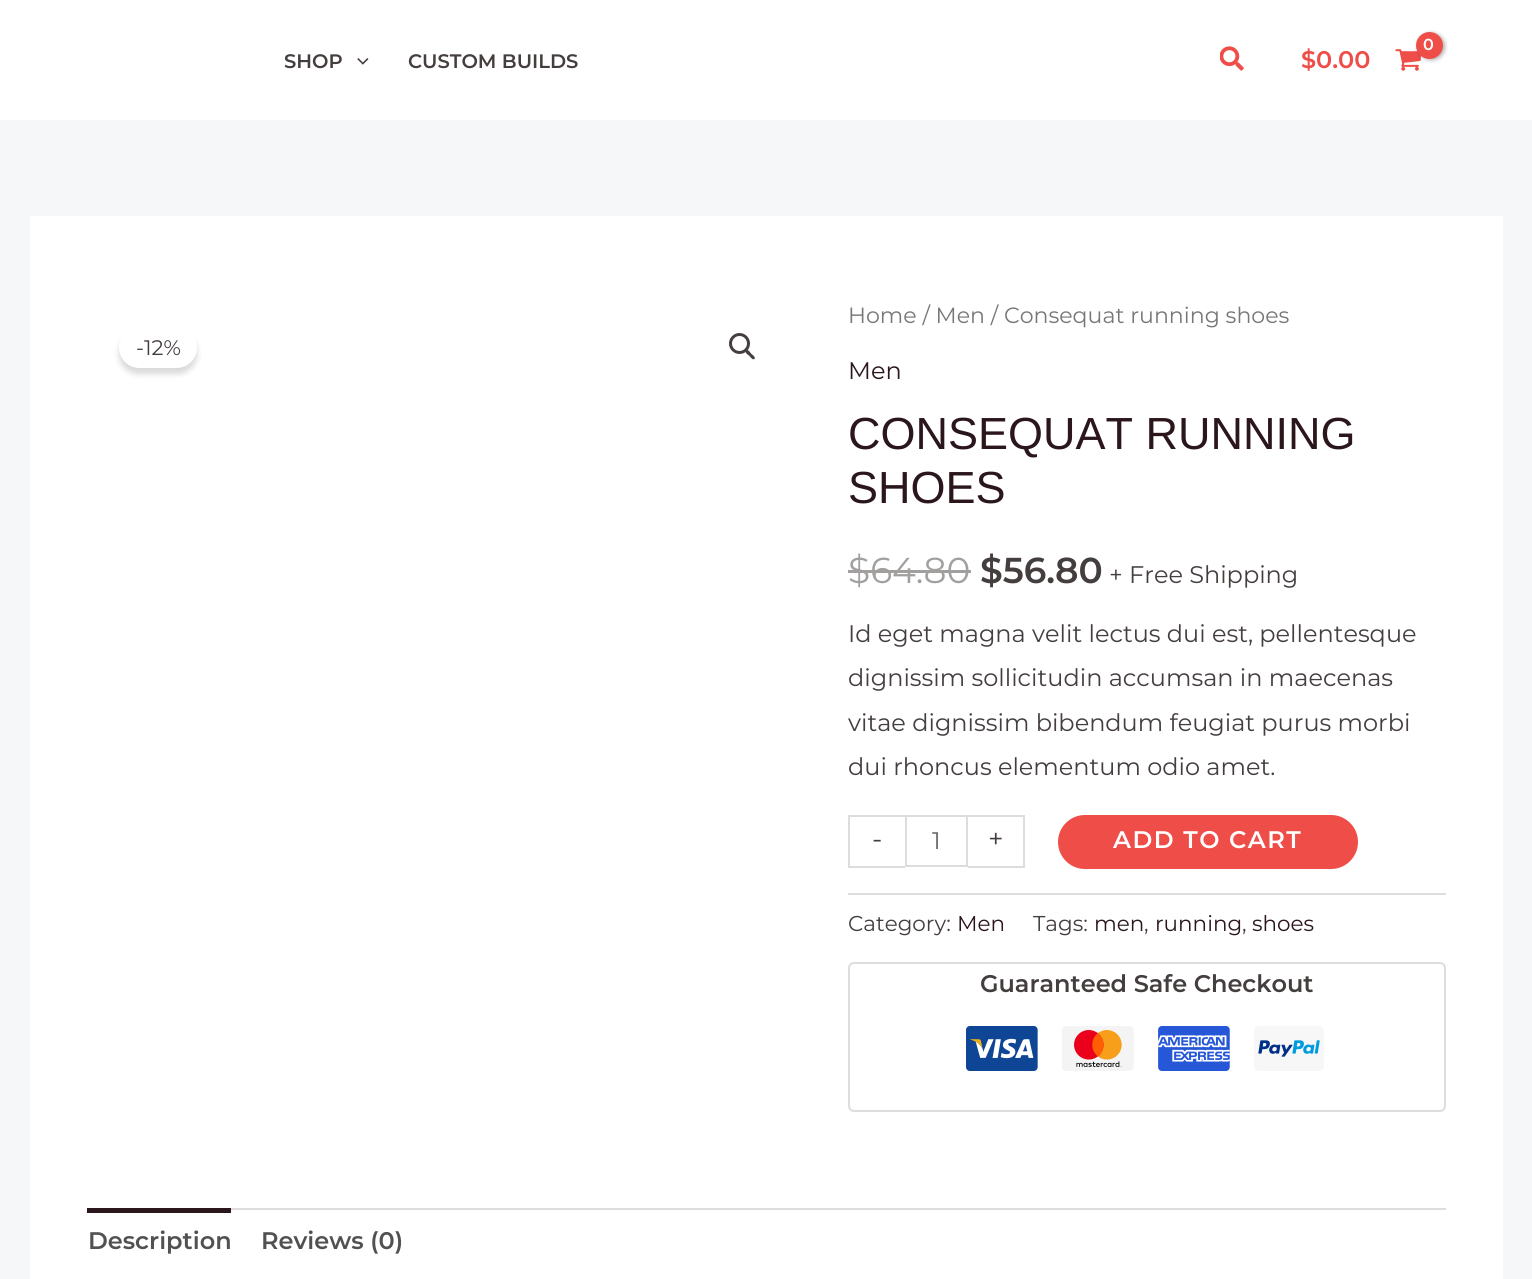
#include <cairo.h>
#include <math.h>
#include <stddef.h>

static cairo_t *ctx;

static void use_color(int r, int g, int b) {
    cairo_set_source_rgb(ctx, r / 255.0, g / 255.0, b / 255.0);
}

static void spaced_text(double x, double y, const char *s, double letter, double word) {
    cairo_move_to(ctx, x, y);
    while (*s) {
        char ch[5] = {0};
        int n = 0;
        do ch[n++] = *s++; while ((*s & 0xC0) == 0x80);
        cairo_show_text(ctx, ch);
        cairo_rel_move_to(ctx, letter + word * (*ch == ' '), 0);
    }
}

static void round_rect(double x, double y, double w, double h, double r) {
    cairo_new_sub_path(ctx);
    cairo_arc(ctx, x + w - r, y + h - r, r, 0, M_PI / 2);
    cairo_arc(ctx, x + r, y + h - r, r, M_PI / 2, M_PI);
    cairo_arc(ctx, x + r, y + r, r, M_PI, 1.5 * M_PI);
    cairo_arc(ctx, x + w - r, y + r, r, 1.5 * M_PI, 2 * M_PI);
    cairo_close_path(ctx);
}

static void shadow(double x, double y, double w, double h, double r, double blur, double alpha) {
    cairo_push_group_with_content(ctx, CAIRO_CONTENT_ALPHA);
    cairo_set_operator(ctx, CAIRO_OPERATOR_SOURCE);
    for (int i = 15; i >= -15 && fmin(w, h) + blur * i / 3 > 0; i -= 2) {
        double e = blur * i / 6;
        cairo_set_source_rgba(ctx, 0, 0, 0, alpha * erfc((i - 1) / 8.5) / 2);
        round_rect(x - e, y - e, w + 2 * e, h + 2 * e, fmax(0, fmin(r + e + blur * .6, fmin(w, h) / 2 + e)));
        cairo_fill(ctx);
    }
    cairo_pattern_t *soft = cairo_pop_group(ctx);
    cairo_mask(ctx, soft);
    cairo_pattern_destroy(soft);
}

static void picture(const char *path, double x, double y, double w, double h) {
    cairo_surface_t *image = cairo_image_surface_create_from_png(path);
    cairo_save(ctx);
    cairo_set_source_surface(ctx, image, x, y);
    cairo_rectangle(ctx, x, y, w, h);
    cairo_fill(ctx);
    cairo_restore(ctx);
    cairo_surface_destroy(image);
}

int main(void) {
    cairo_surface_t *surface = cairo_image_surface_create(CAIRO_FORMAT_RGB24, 1532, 1279);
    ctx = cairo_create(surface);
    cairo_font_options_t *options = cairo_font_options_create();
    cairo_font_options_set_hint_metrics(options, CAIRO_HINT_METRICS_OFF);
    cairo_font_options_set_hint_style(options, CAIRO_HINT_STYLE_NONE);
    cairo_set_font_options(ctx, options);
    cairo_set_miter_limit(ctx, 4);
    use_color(246, 247, 248);
    cairo_paint(ctx);
    use_color(255, 255, 255);
    cairo_rectangle(ctx, 0, 0, 1532, 120);
    cairo_fill(ctx);
    cairo_select_font_face(ctx, "Montserrat SemiBold", CAIRO_FONT_SLANT_NORMAL, CAIRO_FONT_WEIGHT_NORMAL);
    cairo_set_font_size(ctx, 19.5);
    use_color(69, 62, 62);
    cairo_move_to(ctx, 284, 68);
    cairo_show_text(ctx, "SHOP");
    picture("img1.png", 357, 58, 12, 7);
    cairo_move_to(ctx, 408, 68);
    cairo_show_text(ctx, "CUSTOM BUILDS");
    picture("img2.png", 1220, 46, 24, 25);
    picture("img3.png", 1395, 49, 26, 22);
    use_color(0, 0, 0);
    shadow(1418, 33, 27, 27, 13.5, 2, 0.3);
    use_color(239, 77, 72);
    cairo_arc(ctx, 1429.5, 45.5, 13.5, 0, 2 * M_PI);
    cairo_fill(ctx);
    cairo_set_font_size(ctx, 16);
    use_color(255, 255, 255);
    spaced_text(1423, 50, "0", -1, 0);
    cairo_set_font_size(ctx, 24);
    use_color(239, 77, 72);
    cairo_move_to(ctx, 1301, 68);
    cairo_show_text(ctx, "$0.00");
    use_color(255, 255, 255);
    cairo_rectangle(ctx, 30, 216, 1473, 1063);
    cairo_fill(ctx);
    use_color(0, 0, 0);
    shadow(119, 333, 78, 41, 20.5, 3, 0.15);
    use_color(255, 255, 255);
    round_rect(119, 327, 78, 41, 20.5);
    cairo_fill(ctx);
    cairo_select_font_face(ctx, "Montserrat", CAIRO_FONT_SLANT_NORMAL, CAIRO_FONT_WEIGHT_NORMAL);
    cairo_set_font_size(ctx, 21);
    use_color(69, 62, 62);
    cairo_move_to(ctx, 136, 355);
    cairo_show_text(ctx, "-12%");
    cairo_new_path(ctx);
    cairo_arc(ctx, 739.5, 343.5, 9, 0, 2 * M_PI);
    cairo_set_line_width(ctx, 3);
    cairo_stroke(ctx);
    cairo_new_path(ctx);
    cairo_move_to(ctx, 746, 350.5);
    cairo_curve_to(ctx, 747.5, 348.5, 750.5, 352.5, 751, 353.5);
    cairo_curve_to(ctx, 752, 354.5, 756, 357, 754.5, 359);
    cairo_curve_to(ctx, 752.5, 360.5, 750, 356.5, 749, 355.5);
    cairo_curve_to(ctx, 748, 355, 744, 352, 746, 350.5);
    cairo_close_path(ctx);
    cairo_fill(ctx);
    cairo_set_font_size(ctx, 22.1);
    use_color(119, 119, 119);
    cairo_move_to(ctx, 848, 323);
    cairo_show_text(ctx, "Home / Men / Consequat running shoes");
    cairo_set_font_size(ctx, 24);
    use_color(43, 22, 27);
    cairo_move_to(ctx, 848, 379);
    cairo_show_text(ctx, "Men");
    cairo_select_font_face(ctx, "Liberation Sans", CAIRO_FONT_SLANT_NORMAL, CAIRO_FONT_WEIGHT_NORMAL);
    cairo_set_font_size(ctx, 45);
    cairo_move_to(ctx, 848, 449);
    cairo_show_text(ctx, "CONSEQUAT RUNNING");
    cairo_move_to(ctx, 848, 503);
    cairo_show_text(ctx, "SHOES");
    cairo_select_font_face(ctx, "Montserrat", CAIRO_FONT_SLANT_NORMAL, CAIRO_FONT_WEIGHT_NORMAL);
    cairo_set_font_size(ctx, 36);
    use_color(162, 159, 159);
    cairo_move_to(ctx, 848, 583);
    cairo_show_text(ctx, "$64.80");
    cairo_rectangle(ctx, 848, 570, 123, 3);
    cairo_fill(ctx);
    cairo_select_font_face(ctx, "Montserrat SemiBold", CAIRO_FONT_SLANT_NORMAL, CAIRO_FONT_WEIGHT_NORMAL);
    use_color(69, 62, 62);
    cairo_move_to(ctx, 980, 583);
    cairo_show_text(ctx, "$56.80");
    cairo_select_font_face(ctx, "Montserrat", CAIRO_FONT_SLANT_NORMAL, CAIRO_FONT_WEIGHT_NORMAL);
    cairo_set_font_size(ctx, 24);
    cairo_move_to(ctx, 1109, 583);
    cairo_show_text(ctx, "+ Free Shipping");
    cairo_move_to(ctx, 848, 642);
    cairo_show_text(ctx, "Id eget magna velit lectus dui est, pellentesque");
    cairo_move_to(ctx, 848, 686);
    cairo_show_text(ctx, "dignissim sollicitudin accumsan in maecenas");
    cairo_move_to(ctx, 848, 731);
    cairo_show_text(ctx, "vitae dignissim bibendum feugiat purus morbi");
    cairo_move_to(ctx, 848, 775);
    cairo_show_text(ctx, "dui rhoncus elementum odio amet.");
    use_color(221, 221, 221);
    cairo_rectangle(ctx, 848, 815, 57, 2);
    cairo_fill(ctx);
    cairo_rectangle(ctx, 848, 866, 57, 2);
    cairo_fill(ctx);
    cairo_rectangle(ctx, 848, 815, 2, 52);
    cairo_fill(ctx);
    cairo_set_font_size(ctx, 27);
    use_color(69, 62, 62);
    cairo_move_to(ctx, 872, 848);
    cairo_show_text(ctx, "-");
    cairo_rectangle(ctx, 906, 816, 61, 50);
    use_color(221, 221, 221);
    cairo_set_line_width(ctx, 2);
    cairo_stroke(ctx);
    cairo_set_font_size(ctx, 24);
    use_color(102, 102, 102);
    cairo_move_to(ctx, 932, 849);
    cairo_show_text(ctx, "1");
    use_color(221, 221, 221);
    cairo_rectangle(ctx, 968, 815, 57, 2);
    cairo_fill(ctx);
    cairo_rectangle(ctx, 1023, 815, 2, 52);
    cairo_fill(ctx);
    cairo_rectangle(ctx, 968, 866, 57, 2);
    cairo_fill(ctx);
    cairo_set_font_size(ctx, 27);
    use_color(69, 62, 62);
    cairo_move_to(ctx, 988, 848);
    cairo_show_text(ctx, "+");
    use_color(239, 77, 72);
    round_rect(1058, 815, 300, 54, 27);
    cairo_fill(ctx);
    cairo_select_font_face(ctx, "Montserrat SemiBold", CAIRO_FONT_SLANT_NORMAL, CAIRO_FONT_WEIGHT_NORMAL);
    cairo_set_font_size(ctx, 24);
    use_color(255, 255, 255);
    spaced_text(1113, 848, "ADD TO CART", 1.5, 0);
    use_color(221, 221, 221);
    cairo_rectangle(ctx, 848, 893, 598, 2);
    cairo_fill(ctx);
    cairo_select_font_face(ctx, "Montserrat", CAIRO_FONT_SLANT_NORMAL, CAIRO_FONT_WEIGHT_NORMAL);
    cairo_set_font_size(ctx, 21.5);
    use_color(69, 62, 62);
    cairo_move_to(ctx, 848, 931);
    cairo_show_text(ctx, "Category:");
    use_color(43, 22, 27);
    cairo_move_to(ctx, 957, 931);
    cairo_show_text(ctx, "Men");
    use_color(69, 62, 62);
    cairo_move_to(ctx, 1033, 931);
    cairo_show_text(ctx, "Tags:");
    use_color(43, 22, 27);
    cairo_move_to(ctx, 1094, 931);
    cairo_show_text(ctx, "men");
    use_color(69, 62, 62);
    cairo_move_to(ctx, 1144, 931);
    cairo_show_text(ctx, ",");
    use_color(43, 22, 27);
    cairo_move_to(ctx, 1155, 931);
    cairo_show_text(ctx, "running");
    use_color(69, 62, 62);
    cairo_move_to(ctx, 1242, 931);
    cairo_show_text(ctx, ",");
    use_color(43, 22, 27);
    cairo_move_to(ctx, 1252, 931);
    cairo_show_text(ctx, "shoes");
    round_rect(849, 963, 596, 148, 5);
    use_color(221, 221, 221);
    cairo_stroke(ctx);
    cairo_select_font_face(ctx, "Montserrat SemiBold", CAIRO_FONT_SLANT_NORMAL, CAIRO_FONT_WEIGHT_NORMAL);
    cairo_set_font_size(ctx, 24);
    use_color(69, 62, 62);
    cairo_move_to(ctx, 980, 992);
    cairo_show_text(ctx, "Guaranteed Safe Checkout");
    picture("img4.png", 966, 1026, 72, 45);
    picture("img5.png", 1062, 1026, 72, 45);
    picture("img6.png", 1158, 1026, 72, 45);
    picture("img7.png", 1254, 1026, 70, 45);
    use_color(221, 221, 221);
    cairo_rectangle(ctx, 231, 1208, 1215, 2);
    cairo_fill(ctx);
    use_color(43, 22, 27);
    cairo_rectangle(ctx, 87, 1208, 144, 5);
    cairo_fill(ctx);
    use_color(81, 81, 81);
    cairo_move_to(ctx, 88, 1249);
    cairo_show_text(ctx, "Description");
    cairo_move_to(ctx, 261, 1249);
    cairo_show_text(ctx, "Reviews (0)");
    cairo_surface_write_to_png(surface, "result.png");
    cairo_font_options_destroy(options);
    cairo_destroy(ctx);
    cairo_surface_destroy(surface);
    return 0;
}
